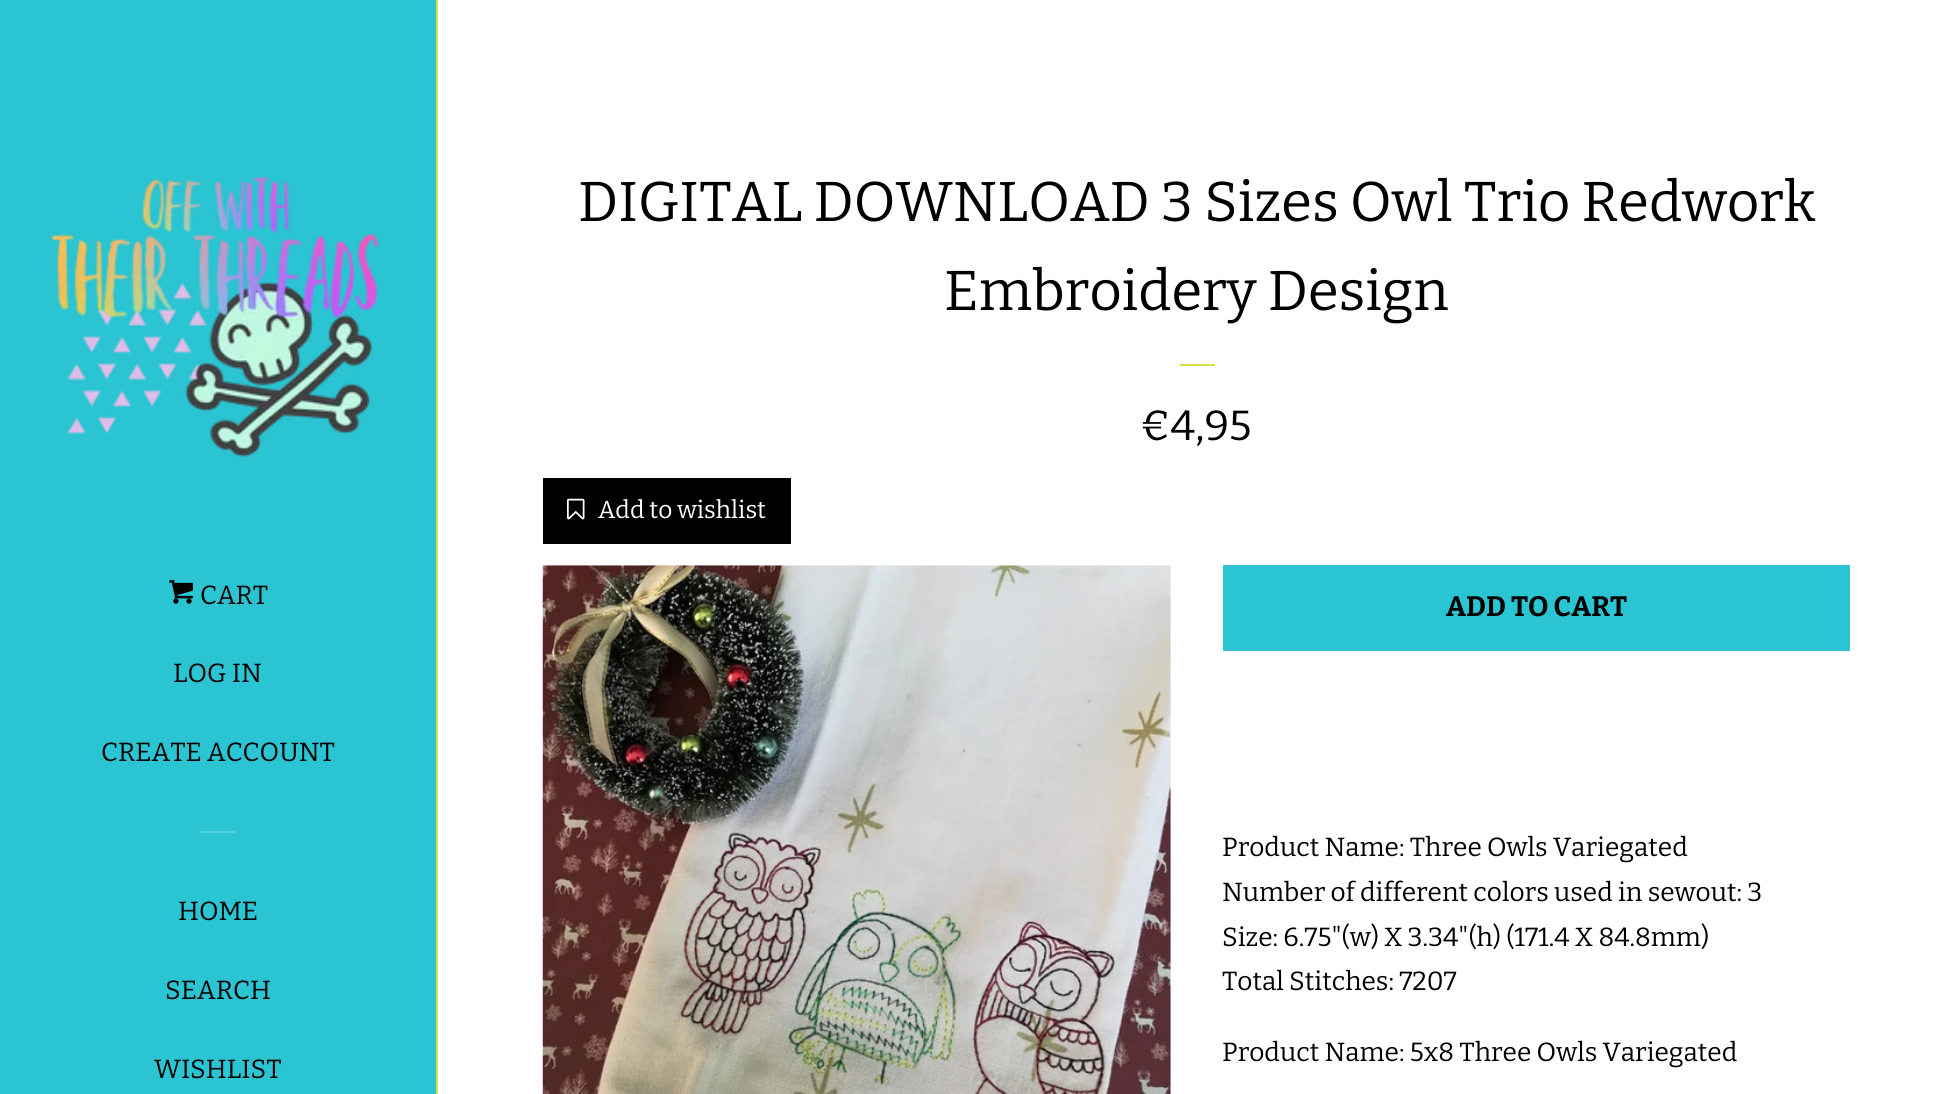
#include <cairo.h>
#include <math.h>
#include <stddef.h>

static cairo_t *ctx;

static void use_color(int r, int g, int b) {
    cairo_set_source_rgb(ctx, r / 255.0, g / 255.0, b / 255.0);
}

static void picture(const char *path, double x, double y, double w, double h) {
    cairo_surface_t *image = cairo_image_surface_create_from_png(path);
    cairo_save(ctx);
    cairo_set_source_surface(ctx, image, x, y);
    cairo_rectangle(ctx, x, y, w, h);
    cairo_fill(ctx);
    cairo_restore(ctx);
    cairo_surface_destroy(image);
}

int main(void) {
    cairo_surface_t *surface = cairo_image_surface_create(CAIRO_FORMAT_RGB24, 1954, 1094);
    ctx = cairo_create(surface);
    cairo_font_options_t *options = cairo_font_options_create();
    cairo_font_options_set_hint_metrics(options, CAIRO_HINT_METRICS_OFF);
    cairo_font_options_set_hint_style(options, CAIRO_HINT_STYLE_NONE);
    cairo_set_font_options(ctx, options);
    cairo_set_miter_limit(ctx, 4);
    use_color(42, 196, 210);
    cairo_paint(ctx);
    use_color(214, 223, 73);
    cairo_rectangle(ctx, 436, 0, 2, 1094);
    cairo_fill(ctx);
    picture("img1.png", 50, 176, 329, 282);
    picture("img2.png", 169, 580, 24, 24);
    cairo_select_font_face(ctx, "Bitter", CAIRO_FONT_SLANT_NORMAL, CAIRO_FONT_WEIGHT_NORMAL);
    cairo_set_font_size(ctx, 26.25);
    use_color(0, 0, 0);
    cairo_move_to(ctx, 200, 604);
    cairo_show_text(ctx, "CART");
    cairo_move_to(ctx, 173, 682);
    cairo_show_text(ctx, "LOG IN");
    cairo_move_to(ctx, 101, 761);
    cairo_show_text(ctx, "CREATE ACCOUNT");
    use_color(83, 209, 220);
    cairo_rectangle(ctx, 201, 831, 35, 2);
    cairo_fill(ctx);
    use_color(0, 0, 0);
    cairo_move_to(ctx, 178, 920);
    cairo_show_text(ctx, "HOME");
    cairo_move_to(ctx, 165, 999);
    cairo_show_text(ctx, "SEARCH");
    cairo_move_to(ctx, 154, 1078);
    cairo_show_text(ctx, "WISHLIST");
    use_color(255, 255, 255);
    cairo_rectangle(ctx, 438, 0, 1516, 1094);
    cairo_fill(ctx);
    cairo_set_font_size(ctx, 56);
    use_color(0, 0, 0);
    cairo_move_to(ctx, 578, 221);
    cairo_show_text(ctx, "DIGITAL DOWNLOAD 3 Sizes Owl Trio Redwork");
    cairo_move_to(ctx, 944, 310);
    cairo_show_text(ctx, "Embroidery Design");
    use_color(214, 223, 73);
    cairo_rectangle(ctx, 1180, 364, 35, 2);
    cairo_fill(ctx);
    cairo_set_font_size(ctx, 42);
    use_color(0, 0, 0);
    cairo_move_to(ctx, 1140, 440);
    cairo_show_text(ctx, "€4,95");
    cairo_rectangle(ctx, 543, 478, 248, 66);
    cairo_fill(ctx);
    picture("img3.png", 567, 498, 18, 22);
    cairo_set_font_size(ctx, 24.5);
    use_color(255, 255, 255);
    cairo_move_to(ctx, 598, 518);
    cairo_show_text(ctx, "Add to wishlist");
    picture("img4.png", 542, 565, 629, 529);
    use_color(42, 196, 210);
    cairo_rectangle(ctx, 1223, 565, 627, 86);
    cairo_fill(ctx);
    cairo_select_font_face(ctx, "Bitter", CAIRO_FONT_SLANT_NORMAL, CAIRO_FONT_WEIGHT_BOLD);
    cairo_set_font_size(ctx, 28);
    use_color(0, 0, 0);
    cairo_move_to(ctx, 1446, 616);
    cairo_show_text(ctx, "ADD TO CART");
    cairo_select_font_face(ctx, "Bitter", CAIRO_FONT_SLANT_NORMAL, CAIRO_FONT_WEIGHT_NORMAL);
    cairo_set_font_size(ctx, 26.25);
    cairo_move_to(ctx, 1222, 856);
    cairo_show_text(ctx, "Product Name: Three Owls Variegated");
    cairo_move_to(ctx, 1222, 901);
    cairo_show_text(ctx, "Number of different colors used in sewout: 3");
    cairo_move_to(ctx, 1222, 946);
    cairo_show_text(ctx, "Size: 6.75\"(w) X 3.34\"(h) (171.4 X 84.8mm)");
    cairo_move_to(ctx, 1222, 990);
    cairo_show_text(ctx, "Total Stitches: 7207");
    cairo_move_to(ctx, 1222, 1061);
    cairo_show_text(ctx, "Product Name: 5x8 Three Owls Variegated");
    cairo_surface_write_to_png(surface, "result.png");
    cairo_font_options_destroy(options);
    cairo_destroy(ctx);
    cairo_surface_destroy(surface);
    return 0;
}
